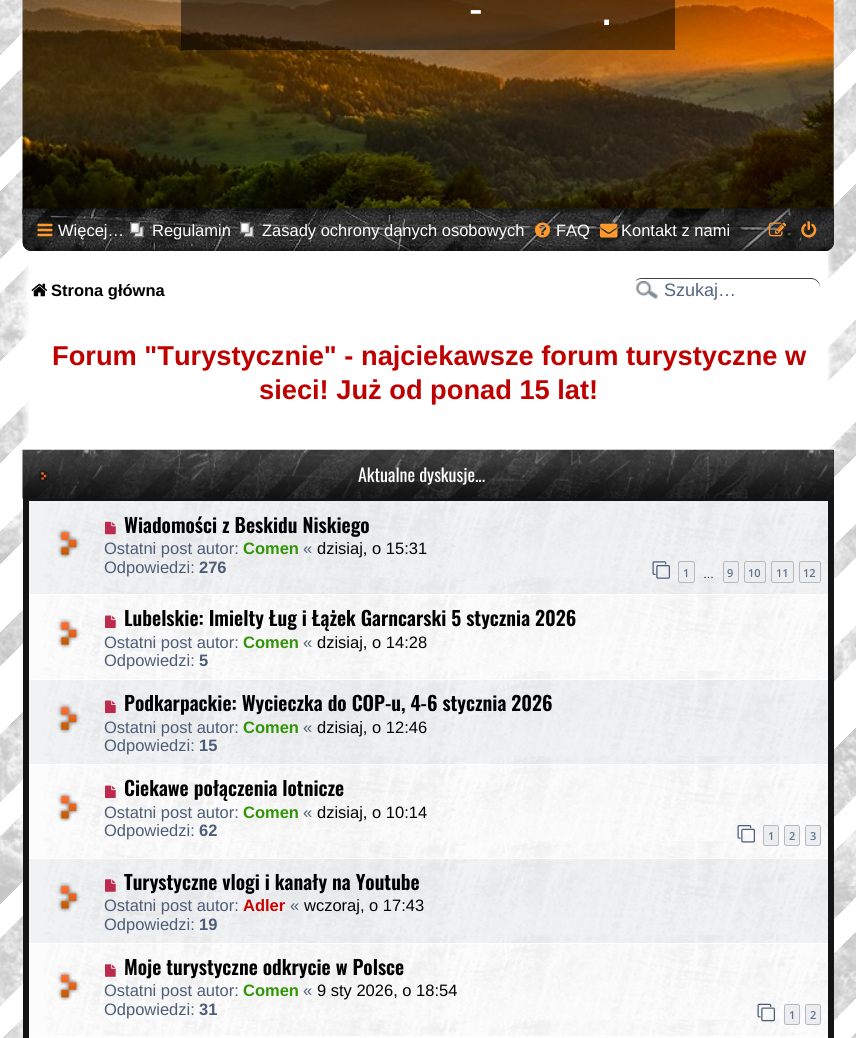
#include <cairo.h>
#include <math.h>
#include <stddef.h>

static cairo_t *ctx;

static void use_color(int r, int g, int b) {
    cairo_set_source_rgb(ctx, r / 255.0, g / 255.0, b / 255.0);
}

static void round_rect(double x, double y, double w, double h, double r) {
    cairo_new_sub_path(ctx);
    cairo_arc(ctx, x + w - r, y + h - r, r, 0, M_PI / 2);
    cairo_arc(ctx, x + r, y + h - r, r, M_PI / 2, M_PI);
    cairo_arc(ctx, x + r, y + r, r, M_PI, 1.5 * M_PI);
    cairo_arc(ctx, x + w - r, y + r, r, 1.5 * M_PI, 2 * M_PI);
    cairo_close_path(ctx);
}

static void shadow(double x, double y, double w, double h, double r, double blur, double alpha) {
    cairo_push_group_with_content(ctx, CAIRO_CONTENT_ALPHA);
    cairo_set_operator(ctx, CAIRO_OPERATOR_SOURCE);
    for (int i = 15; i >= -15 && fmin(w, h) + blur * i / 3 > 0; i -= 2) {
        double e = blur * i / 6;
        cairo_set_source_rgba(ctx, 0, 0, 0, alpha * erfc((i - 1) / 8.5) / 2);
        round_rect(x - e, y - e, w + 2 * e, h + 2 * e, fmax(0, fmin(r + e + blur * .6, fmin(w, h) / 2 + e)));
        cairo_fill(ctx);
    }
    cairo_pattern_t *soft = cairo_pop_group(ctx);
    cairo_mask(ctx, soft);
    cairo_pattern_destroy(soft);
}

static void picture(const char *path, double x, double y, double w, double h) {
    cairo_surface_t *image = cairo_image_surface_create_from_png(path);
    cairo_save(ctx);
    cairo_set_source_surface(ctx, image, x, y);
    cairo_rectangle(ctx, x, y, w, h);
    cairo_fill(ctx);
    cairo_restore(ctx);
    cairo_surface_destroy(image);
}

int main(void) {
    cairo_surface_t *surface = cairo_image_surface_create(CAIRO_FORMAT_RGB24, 856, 1038);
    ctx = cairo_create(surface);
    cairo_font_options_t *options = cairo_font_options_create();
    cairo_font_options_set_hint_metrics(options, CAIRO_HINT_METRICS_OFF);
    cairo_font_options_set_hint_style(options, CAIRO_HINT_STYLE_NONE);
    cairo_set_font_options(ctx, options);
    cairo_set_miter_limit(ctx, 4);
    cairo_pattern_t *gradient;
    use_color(255, 255, 255);
    cairo_paint(ctx);
    gradient = cairo_pattern_create_linear(-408, 294, 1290, 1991);
    cairo_pattern_add_color_stop_rgba(gradient, 0, 0.773, 0.773, 0.773, 1);
    cairo_pattern_add_color_stop_rgba(gradient, 0.02, 0.773, 0.773, 0.773, 1);
    cairo_pattern_add_color_stop_rgba(gradient, 0.02, 1, 1, 1, 1);
    cairo_pattern_add_color_stop_rgba(gradient, 0.03, 1, 1, 1, 1);
    cairo_pattern_add_color_stop_rgba(gradient, 0.03, 0.773, 0.773, 0.773, 1);
    cairo_pattern_add_color_stop_rgba(gradient, 0.05, 0.773, 0.773, 0.773, 1);
    cairo_pattern_add_color_stop_rgba(gradient, 0.05, 1, 1, 1, 1);
    cairo_pattern_add_color_stop_rgba(gradient, 0.06, 1, 1, 1, 1);
    cairo_pattern_add_color_stop_rgba(gradient, 0.06, 0.773, 0.773, 0.773, 1);
    cairo_pattern_add_color_stop_rgba(gradient, 0.08, 0.773, 0.773, 0.773, 1);
    cairo_pattern_add_color_stop_rgba(gradient, 0.08, 1, 1, 1, 1);
    cairo_pattern_add_color_stop_rgba(gradient, 0.09, 1, 1, 1, 1);
    cairo_pattern_add_color_stop_rgba(gradient, 0.09, 0.773, 0.773, 0.773, 1);
    cairo_pattern_add_color_stop_rgba(gradient, 0.11, 0.773, 0.773, 0.773, 1);
    cairo_pattern_add_color_stop_rgba(gradient, 0.11, 1, 1, 1, 1);
    cairo_pattern_add_color_stop_rgba(gradient, 0.12, 1, 1, 1, 1);
    cairo_pattern_add_color_stop_rgba(gradient, 0.12, 0.773, 0.773, 0.773, 1);
    cairo_pattern_add_color_stop_rgba(gradient, 0.14, 0.773, 0.773, 0.773, 1);
    cairo_pattern_add_color_stop_rgba(gradient, 0.14, 1, 1, 1, 1);
    cairo_pattern_add_color_stop_rgba(gradient, 0.16, 1, 1, 1, 1);
    cairo_pattern_add_color_stop_rgba(gradient, 0.16, 0.773, 0.773, 0.773, 1);
    cairo_pattern_add_color_stop_rgba(gradient, 0.17, 0.773, 0.773, 0.773, 1);
    cairo_pattern_add_color_stop_rgba(gradient, 0.17, 1, 1, 1, 1);
    cairo_pattern_add_color_stop_rgba(gradient, 0.19, 1, 1, 1, 1);
    cairo_pattern_add_color_stop_rgba(gradient, 0.19, 0.773, 0.773, 0.773, 1);
    cairo_pattern_add_color_stop_rgba(gradient, 0.2, 0.773, 0.773, 0.773, 1);
    cairo_pattern_add_color_stop_rgba(gradient, 0.2, 1, 1, 1, 1);
    cairo_pattern_add_color_stop_rgba(gradient, 0.22, 1, 1, 1, 1);
    cairo_pattern_add_color_stop_rgba(gradient, 0.22, 0.773, 0.773, 0.773, 1);
    cairo_pattern_add_color_stop_rgba(gradient, 0.23, 0.773, 0.773, 0.773, 1);
    cairo_pattern_add_color_stop_rgba(gradient, 0.23, 1, 1, 1, 1);
    cairo_pattern_add_color_stop_rgba(gradient, 0.25, 1, 1, 1, 1);
    cairo_pattern_add_color_stop_rgba(gradient, 0.25, 0.773, 0.773, 0.773, 1);
    cairo_pattern_add_color_stop_rgba(gradient, 0.27, 0.773, 0.773, 0.773, 1);
    cairo_pattern_add_color_stop_rgba(gradient, 0.27, 1, 1, 1, 1);
    cairo_pattern_add_color_stop_rgba(gradient, 0.28, 1, 1, 1, 1);
    cairo_pattern_add_color_stop_rgba(gradient, 0.28, 0.773, 0.773, 0.773, 1);
    cairo_pattern_add_color_stop_rgba(gradient, 0.3, 0.773, 0.773, 0.773, 1);
    cairo_pattern_add_color_stop_rgba(gradient, 0.3, 1, 1, 1, 1);
    cairo_pattern_add_color_stop_rgba(gradient, 0.31, 1, 1, 1, 1);
    cairo_pattern_add_color_stop_rgba(gradient, 0.31, 0.773, 0.773, 0.773, 1);
    cairo_pattern_add_color_stop_rgba(gradient, 0.33, 0.773, 0.773, 0.773, 1);
    cairo_pattern_add_color_stop_rgba(gradient, 0.33, 1, 1, 1, 1);
    cairo_pattern_add_color_stop_rgba(gradient, 0.34, 1, 1, 1, 1);
    cairo_pattern_add_color_stop_rgba(gradient, 0.34, 0.773, 0.773, 0.773, 1);
    cairo_pattern_add_color_stop_rgba(gradient, 0.36, 0.773, 0.773, 0.773, 1);
    cairo_pattern_add_color_stop_rgba(gradient, 0.36, 1, 1, 1, 1);
    cairo_pattern_add_color_stop_rgba(gradient, 0.38, 1, 1, 1, 1);
    cairo_pattern_add_color_stop_rgba(gradient, 0.38, 0.773, 0.773, 0.773, 1);
    cairo_pattern_add_color_stop_rgba(gradient, 0.39, 0.773, 0.773, 0.773, 1);
    cairo_pattern_add_color_stop_rgba(gradient, 0.39, 1, 1, 1, 1);
    cairo_pattern_add_color_stop_rgba(gradient, 0.41, 1, 1, 1, 1);
    cairo_pattern_add_color_stop_rgba(gradient, 0.41, 0.773, 0.773, 0.773, 1);
    cairo_pattern_add_color_stop_rgba(gradient, 0.42, 0.773, 0.773, 0.773, 1);
    cairo_pattern_add_color_stop_rgba(gradient, 0.42, 1, 1, 1, 1);
    cairo_pattern_add_color_stop_rgba(gradient, 0.44, 1, 1, 1, 1);
    cairo_pattern_add_color_stop_rgba(gradient, 0.44, 0.773, 0.773, 0.773, 1);
    cairo_pattern_add_color_stop_rgba(gradient, 0.45, 0.773, 0.773, 0.773, 1);
    cairo_pattern_add_color_stop_rgba(gradient, 0.45, 1, 1, 1, 1);
    cairo_pattern_add_color_stop_rgba(gradient, 0.47, 1, 1, 1, 1);
    cairo_pattern_add_color_stop_rgba(gradient, 0.47, 0.773, 0.773, 0.773, 1);
    cairo_pattern_add_color_stop_rgba(gradient, 0.48, 0.773, 0.773, 0.773, 1);
    cairo_pattern_add_color_stop_rgba(gradient, 0.48, 1, 1, 1, 1);
    cairo_pattern_add_color_stop_rgba(gradient, 0.5, 1, 1, 1, 1);
    cairo_pattern_add_color_stop_rgba(gradient, 0.5, 0.773, 0.773, 0.773, 1);
    cairo_pattern_add_color_stop_rgba(gradient, 0.52, 0.773, 0.773, 0.773, 1);
    cairo_pattern_add_color_stop_rgba(gradient, 0.52, 1, 1, 1, 1);
    cairo_pattern_add_color_stop_rgba(gradient, 0.53, 1, 1, 1, 1);
    cairo_pattern_add_color_stop_rgba(gradient, 0.53, 0.773, 0.773, 0.773, 1);
    cairo_pattern_add_color_stop_rgba(gradient, 0.55, 0.773, 0.773, 0.773, 1);
    cairo_pattern_add_color_stop_rgba(gradient, 0.55, 1, 1, 1, 1);
    cairo_pattern_add_color_stop_rgba(gradient, 0.56, 1, 1, 1, 1);
    cairo_pattern_add_color_stop_rgba(gradient, 0.56, 0.773, 0.773, 0.773, 1);
    cairo_pattern_add_color_stop_rgba(gradient, 0.58, 0.773, 0.773, 0.773, 1);
    cairo_pattern_add_color_stop_rgba(gradient, 0.58, 1, 1, 1, 1);
    cairo_pattern_add_color_stop_rgba(gradient, 0.59, 1, 1, 1, 1);
    cairo_pattern_add_color_stop_rgba(gradient, 0.59, 0.773, 0.773, 0.773, 1);
    cairo_pattern_add_color_stop_rgba(gradient, 0.61, 0.773, 0.773, 0.773, 1);
    cairo_pattern_add_color_stop_rgba(gradient, 0.61, 1, 1, 1, 1);
    cairo_pattern_add_color_stop_rgba(gradient, 0.62, 1, 1, 1, 1);
    cairo_pattern_add_color_stop_rgba(gradient, 0.62, 0.773, 0.773, 0.773, 1);
    cairo_pattern_add_color_stop_rgba(gradient, 0.64, 0.773, 0.773, 0.773, 1);
    cairo_pattern_add_color_stop_rgba(gradient, 0.64, 1, 1, 1, 1);
    cairo_pattern_add_color_stop_rgba(gradient, 0.66, 1, 1, 1, 1);
    cairo_pattern_add_color_stop_rgba(gradient, 0.66, 0.773, 0.773, 0.773, 1);
    cairo_pattern_add_color_stop_rgba(gradient, 0.67, 0.773, 0.773, 0.773, 1);
    cairo_pattern_add_color_stop_rgba(gradient, 0.67, 1, 1, 1, 1);
    cairo_pattern_add_color_stop_rgba(gradient, 0.69, 1, 1, 1, 1);
    cairo_pattern_add_color_stop_rgba(gradient, 0.69, 0.773, 0.773, 0.773, 1);
    cairo_pattern_add_color_stop_rgba(gradient, 0.7, 0.773, 0.773, 0.773, 1);
    cairo_pattern_add_color_stop_rgba(gradient, 0.7, 1, 1, 1, 1);
    cairo_pattern_add_color_stop_rgba(gradient, 0.72, 1, 1, 1, 1);
    cairo_pattern_add_color_stop_rgba(gradient, 0.72, 0.773, 0.773, 0.773, 1);
    cairo_pattern_add_color_stop_rgba(gradient, 0.73, 0.773, 0.773, 0.773, 1);
    cairo_pattern_add_color_stop_rgba(gradient, 0.73, 1, 1, 1, 1);
    cairo_pattern_add_color_stop_rgba(gradient, 0.75, 1, 1, 1, 1);
    cairo_pattern_add_color_stop_rgba(gradient, 0.75, 0.773, 0.773, 0.773, 1);
    cairo_pattern_add_color_stop_rgba(gradient, 0.77, 0.773, 0.773, 0.773, 1);
    cairo_pattern_add_color_stop_rgba(gradient, 0.77, 1, 1, 1, 1);
    cairo_pattern_add_color_stop_rgba(gradient, 0.78, 1, 1, 1, 1);
    cairo_pattern_add_color_stop_rgba(gradient, 0.78, 0.773, 0.773, 0.773, 1);
    cairo_pattern_add_color_stop_rgba(gradient, 0.8, 0.773, 0.773, 0.773, 1);
    cairo_pattern_add_color_stop_rgba(gradient, 0.8, 1, 1, 1, 1);
    cairo_pattern_add_color_stop_rgba(gradient, 0.81, 1, 1, 1, 1);
    cairo_pattern_add_color_stop_rgba(gradient, 0.81, 0.773, 0.773, 0.773, 1);
    cairo_pattern_add_color_stop_rgba(gradient, 0.83, 0.773, 0.773, 0.773, 1);
    cairo_pattern_add_color_stop_rgba(gradient, 0.83, 1, 1, 1, 1);
    cairo_pattern_add_color_stop_rgba(gradient, 0.84, 1, 1, 1, 1);
    cairo_pattern_add_color_stop_rgba(gradient, 0.84, 0.773, 0.773, 0.773, 1);
    cairo_pattern_add_color_stop_rgba(gradient, 0.86, 0.773, 0.773, 0.773, 1);
    cairo_pattern_add_color_stop_rgba(gradient, 0.86, 1, 1, 1, 1);
    cairo_pattern_add_color_stop_rgba(gradient, 0.88, 1, 1, 1, 1);
    cairo_pattern_add_color_stop_rgba(gradient, 0.88, 0.773, 0.773, 0.773, 1);
    cairo_pattern_add_color_stop_rgba(gradient, 0.89, 0.773, 0.773, 0.773, 1);
    cairo_pattern_add_color_stop_rgba(gradient, 0.89, 1, 1, 1, 1);
    cairo_pattern_add_color_stop_rgba(gradient, 0.91, 1, 1, 1, 1);
    cairo_pattern_add_color_stop_rgba(gradient, 0.91, 0.773, 0.773, 0.773, 1);
    cairo_pattern_add_color_stop_rgba(gradient, 0.92, 0.773, 0.773, 0.773, 1);
    cairo_pattern_add_color_stop_rgba(gradient, 0.92, 1, 1, 1, 1);
    cairo_pattern_add_color_stop_rgba(gradient, 0.94, 1, 1, 1, 1);
    cairo_pattern_add_color_stop_rgba(gradient, 0.94, 0.773, 0.773, 0.773, 1);
    cairo_pattern_add_color_stop_rgba(gradient, 0.95, 0.773, 0.773, 0.773, 1);
    cairo_pattern_add_color_stop_rgba(gradient, 0.95, 1, 1, 1, 1);
    cairo_pattern_add_color_stop_rgba(gradient, 0.97, 1, 1, 1, 1);
    cairo_pattern_add_color_stop_rgba(gradient, 0.97, 0.773, 0.773, 0.773, 1);
    cairo_pattern_add_color_stop_rgba(gradient, 0.98, 0.773, 0.773, 0.773, 1);
    cairo_pattern_add_color_stop_rgba(gradient, 0.98, 1, 1, 1, 1);
    cairo_pattern_add_color_stop_rgba(gradient, 1, 1, 1, 1, 1);
    cairo_set_source(ctx, gradient);
    cairo_pattern_destroy(gradient);
    cairo_rectangle(ctx, 0, 0, 856, 1038);
    cairo_fill(ctx);
    picture("img1.png", 0, 0, 856, 1038);
    use_color(255, 255, 255);
    shadow(26, -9, 804, 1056, 0, 3, 1);
    use_color(255, 255, 255);
    cairo_rectangle(ctx, 29, 250, 799, 184);
    cairo_fill(ctx);
    picture("img2.png", 22, 0, 812, 215);
    cairo_set_source_rgba(ctx, 0, 0, 0, 0.5);
    cairo_rectangle(ctx, 181, 0, 494, 50);
    cairo_fill(ctx);
    cairo_select_font_face(ctx, "Oswald", CAIRO_FONT_SLANT_NORMAL, CAIRO_FONT_WEIGHT_NORMAL);
    cairo_set_font_size(ctx, 45);
    use_color(255, 255, 255);
    cairo_move_to(ctx, 469, 25);
    cairo_show_text(ctx, "-");
    cairo_move_to(ctx, 602, 25);
    cairo_show_text(ctx, ".");
    use_color(0, 0, 0);
    cairo_new_path(ctx);
    cairo_move_to(ctx, 23, 209);
    cairo_line_to(ctx, 834, 209);
    cairo_line_to(ctx, 834, 242);
    cairo_curve_to(ctx, 834, 247, 830, 251, 825, 251);
    cairo_line_to(ctx, 32, 251);
    cairo_curve_to(ctx, 27, 251, 23, 247, 23, 242);
    cairo_close_path(ctx);
    cairo_fill(ctx);
    picture("img3.png", 22, 208, 812, 43);
    picture("img4.png", 37, 223, 16, 14);
    cairo_select_font_face(ctx, "Liberation Sans", CAIRO_FONT_SLANT_NORMAL, CAIRO_FONT_WEIGHT_NORMAL);
    cairo_set_font_size(ctx, 16.5);
    use_color(255, 255, 255);
    cairo_move_to(ctx, 58, 236);
    cairo_show_text(ctx, "Więcej…");
    picture("img5.png", 130, 222, 14, 16);
    cairo_move_to(ctx, 152, 236);
    cairo_show_text(ctx, "Regulamin");
    picture("img6.png", 240, 222, 14, 16);
    cairo_move_to(ctx, 262, 236);
    cairo_show_text(ctx, "Zasady ochrony danych osobowych");
    picture("img7.png", 535, 222, 15, 16);
    cairo_move_to(ctx, 556, 236);
    cairo_show_text(ctx, "FAQ");
    picture("img8.png", 600, 223, 18, 15);
    cairo_move_to(ctx, 621, 236);
    cairo_show_text(ctx, "Kontakt z nami");
    picture("img9.png", 768, 222, 19, 15);
    picture("img10.png", 801, 221, 16, 17);
    picture("img11.png", 31, 283, 17, 14);
    cairo_select_font_face(ctx, "Liberation Sans", CAIRO_FONT_SLANT_NORMAL, CAIRO_FONT_WEIGHT_BOLD);
    use_color(0, 0, 0);
    cairo_move_to(ctx, 51, 296);
    cairo_show_text(ctx, "Strona główna");
    picture("img12.png", 636, 281, 22, 18);
    use_color(64, 64, 64);
    cairo_new_path(ctx);
    cairo_move_to(ctx, 641, 279);
    cairo_line_to(ctx, 811, 279);
    cairo_curve_to(ctx, 816, 279, 820, 283, 820, 288);
    cairo_line_to(ctx, 820, 287);
    cairo_curve_to(ctx, 820, 282, 816, 278, 811, 278);
    cairo_line_to(ctx, 642, 278);
    cairo_curve_to(ctx, 639, 278, 637, 279, 635, 281);
    cairo_curve_to(ctx, 637, 280, 639, 279, 641, 279);
    cairo_close_path(ctx);
    cairo_fill(ctx);
    cairo_select_font_face(ctx, "Liberation Sans", CAIRO_FONT_SLANT_NORMAL, CAIRO_FONT_WEIGHT_NORMAL);
    cairo_set_font_size(ctx, 18);
    use_color(83, 100, 130);
    cairo_move_to(ctx, 664, 296);
    cairo_show_text(ctx, "Szukaj…");
    cairo_select_font_face(ctx, "Liberation Sans", CAIRO_FONT_SLANT_NORMAL, CAIRO_FONT_WEIGHT_BOLD);
    cairo_set_font_size(ctx, 27.25);
    use_color(191, 0, 0);
    cairo_move_to(ctx, 52, 365);
    cairo_show_text(ctx, "Forum \"Turystycznie\" - najciekawsze forum turystyczne w");
    cairo_move_to(ctx, 259, 399);
    cairo_show_text(ctx, "sieci! Już od ponad 15 lat!");
    use_color(20, 20, 20);
    cairo_rectangle(ctx, 23, 450, 811, 588);
    cairo_fill(ctx);
    picture("img13.png", 22, 449, 812, 50);
    picture("img14.png", 39, 470, 10, 12);
    cairo_select_font_face(ctx, "Oswald", CAIRO_FONT_SLANT_NORMAL, CAIRO_FONT_WEIGHT_NORMAL);
    cairo_set_font_size(ctx, 18);
    use_color(255, 255, 255);
    cairo_move_to(ctx, 358, 482);
    cairo_show_text(ctx, "Aktualne dyskusje...");
    use_color(241, 242, 244);
    cairo_rectangle(ctx, 29, 501, 799, 93);
    cairo_fill(ctx);
    picture("img15.png", 44, 501, 784, 93);
    use_color(255, 255, 255);
    cairo_rectangle(ctx, 29, 594, 799, 1);
    cairo_fill(ctx);
    picture("img16.png", 57, 528, 23, 31);
    picture("img17.png", 105, 521, 11, 14);
    cairo_select_font_face(ctx, "Oswald SemiBold", CAIRO_FONT_SLANT_NORMAL, CAIRO_FONT_WEIGHT_NORMAL);
    cairo_set_font_size(ctx, 19.8);
    use_color(0, 0, 0);
    cairo_move_to(ctx, 124, 533);
    cairo_show_text(ctx, "Wiadomości z Beskidu Niskiego");
    cairo_select_font_face(ctx, "Liberation Sans", CAIRO_FONT_SLANT_NORMAL, CAIRO_FONT_WEIGHT_NORMAL);
    cairo_set_font_size(ctx, 16.5);
    use_color(76, 93, 119);
    cairo_move_to(ctx, 104, 554);
    cairo_show_text(ctx, "Ostatni post autor:");
    cairo_select_font_face(ctx, "Liberation Sans", CAIRO_FONT_SLANT_NORMAL, CAIRO_FONT_WEIGHT_BOLD);
    use_color(50, 149, 7);
    cairo_move_to(ctx, 243, 554);
    cairo_show_text(ctx, "Comen");
    cairo_select_font_face(ctx, "Liberation Sans", CAIRO_FONT_SLANT_NORMAL, CAIRO_FONT_WEIGHT_NORMAL);
    use_color(76, 93, 119);
    cairo_move_to(ctx, 303, 554);
    cairo_show_text(ctx, "«");
    use_color(0, 0, 0);
    cairo_move_to(ctx, 317, 554);
    cairo_show_text(ctx, "dzisiaj, o 15:31");
    use_color(76, 93, 119);
    cairo_move_to(ctx, 104, 573);
    cairo_show_text(ctx, "Odpowiedzi:");
    cairo_select_font_face(ctx, "Liberation Sans", CAIRO_FONT_SLANT_NORMAL, CAIRO_FONT_WEIGHT_BOLD);
    cairo_move_to(ctx, 199, 573);
    cairo_show_text(ctx, "276");
    picture("img18.png", 652, 561, 18, 18);
    use_color(236, 237, 238);
    round_rect(678.5, 561.5, 16, 21, 2);
    cairo_fill_preserve(ctx);
    use_color(180, 186, 192);
    cairo_set_line_width(ctx, 1);
    cairo_stroke(ctx);
    cairo_select_font_face(ctx, "Open Sans SemiBold", CAIRO_FONT_SLANT_NORMAL, CAIRO_FONT_WEIGHT_NORMAL);
    cairo_set_font_size(ctx, 11);
    use_color(92, 117, 140);
    cairo_move_to(ctx, 683, 577);
    cairo_show_text(ctx, "1");
    cairo_select_font_face(ctx, "Liberation Sans", CAIRO_FONT_SLANT_NORMAL, CAIRO_FONT_WEIGHT_NORMAL);
    use_color(0, 0, 0);
    cairo_move_to(ctx, 703, 578);
    cairo_show_text(ctx, "…");
    use_color(236, 237, 238);
    round_rect(723.5, 561.5, 15, 21, 2);
    cairo_fill_preserve(ctx);
    use_color(180, 186, 192);
    cairo_stroke(ctx);
    cairo_select_font_face(ctx, "Open Sans SemiBold", CAIRO_FONT_SLANT_NORMAL, CAIRO_FONT_WEIGHT_NORMAL);
    use_color(92, 117, 140);
    cairo_move_to(ctx, 727, 577);
    cairo_show_text(ctx, "9");
    use_color(236, 237, 238);
    round_rect(744.5, 561.5, 21, 21, 2);
    cairo_fill_preserve(ctx);
    use_color(180, 186, 192);
    cairo_stroke(ctx);
    use_color(92, 117, 140);
    cairo_move_to(ctx, 748, 577);
    cairo_show_text(ctx, "10");
    use_color(236, 237, 238);
    round_rect(771.5, 561.5, 22, 21, 2);
    cairo_fill_preserve(ctx);
    use_color(180, 186, 192);
    cairo_stroke(ctx);
    use_color(92, 117, 140);
    cairo_move_to(ctx, 776, 577);
    cairo_show_text(ctx, "11");
    use_color(236, 237, 238);
    round_rect(799.5, 561.5, 21, 21, 2);
    cairo_fill_preserve(ctx);
    use_color(180, 186, 192);
    cairo_stroke(ctx);
    use_color(92, 117, 140);
    cairo_move_to(ctx, 803, 577);
    cairo_show_text(ctx, "12");
    use_color(252, 252, 252);
    cairo_rectangle(ctx, 29, 595, 799, 84);
    cairo_fill(ctx);
    picture("img19.png", 44, 595, 784, 84);
    use_color(255, 255, 255);
    cairo_rectangle(ctx, 29, 679, 799, 1);
    cairo_fill(ctx);
    picture("img20.png", 57, 618, 23, 31);
    picture("img21.png", 105, 615, 11, 14);
    cairo_select_font_face(ctx, "Oswald SemiBold", CAIRO_FONT_SLANT_NORMAL, CAIRO_FONT_WEIGHT_NORMAL);
    cairo_set_font_size(ctx, 19.8);
    use_color(0, 0, 0);
    cairo_move_to(ctx, 124, 626);
    cairo_show_text(ctx, "Lubelskie: Imielty Ług i Łążek Garncarski 5 stycznia 2026");
    cairo_select_font_face(ctx, "Liberation Sans", CAIRO_FONT_SLANT_NORMAL, CAIRO_FONT_WEIGHT_NORMAL);
    cairo_set_font_size(ctx, 16.5);
    use_color(76, 93, 119);
    cairo_move_to(ctx, 104, 648);
    cairo_show_text(ctx, "Ostatni post autor:");
    cairo_select_font_face(ctx, "Liberation Sans", CAIRO_FONT_SLANT_NORMAL, CAIRO_FONT_WEIGHT_BOLD);
    use_color(50, 149, 7);
    cairo_move_to(ctx, 243, 648);
    cairo_show_text(ctx, "Comen");
    cairo_select_font_face(ctx, "Liberation Sans", CAIRO_FONT_SLANT_NORMAL, CAIRO_FONT_WEIGHT_NORMAL);
    use_color(76, 93, 119);
    cairo_move_to(ctx, 303, 648);
    cairo_show_text(ctx, "«");
    use_color(0, 0, 0);
    cairo_move_to(ctx, 317, 648);
    cairo_show_text(ctx, "dzisiaj, o 14:28");
    use_color(76, 93, 119);
    cairo_move_to(ctx, 104, 666);
    cairo_show_text(ctx, "Odpowiedzi:");
    cairo_select_font_face(ctx, "Liberation Sans", CAIRO_FONT_SLANT_NORMAL, CAIRO_FONT_WEIGHT_BOLD);
    cairo_move_to(ctx, 199, 666);
    cairo_show_text(ctx, "5");
    use_color(241, 242, 244);
    cairo_rectangle(ctx, 29, 680, 799, 84);
    cairo_fill(ctx);
    picture("img22.png", 44, 680, 784, 84);
    use_color(255, 255, 255);
    cairo_rectangle(ctx, 29, 764, 799, 1);
    cairo_fill(ctx);
    picture("img23.png", 57, 703, 23, 31);
    picture("img24.png", 105, 700, 11, 14);
    cairo_select_font_face(ctx, "Oswald SemiBold", CAIRO_FONT_SLANT_NORMAL, CAIRO_FONT_WEIGHT_NORMAL);
    cairo_set_font_size(ctx, 19.8);
    use_color(0, 0, 0);
    cairo_move_to(ctx, 124, 711);
    cairo_show_text(ctx, "Podkarpackie: Wycieczka do COP-u, 4-6 stycznia 2026");
    cairo_select_font_face(ctx, "Liberation Sans", CAIRO_FONT_SLANT_NORMAL, CAIRO_FONT_WEIGHT_NORMAL);
    cairo_set_font_size(ctx, 16.5);
    use_color(76, 93, 119);
    cairo_move_to(ctx, 104, 733);
    cairo_show_text(ctx, "Ostatni post autor:");
    cairo_select_font_face(ctx, "Liberation Sans", CAIRO_FONT_SLANT_NORMAL, CAIRO_FONT_WEIGHT_BOLD);
    use_color(50, 149, 7);
    cairo_move_to(ctx, 243, 733);
    cairo_show_text(ctx, "Comen");
    cairo_select_font_face(ctx, "Liberation Sans", CAIRO_FONT_SLANT_NORMAL, CAIRO_FONT_WEIGHT_NORMAL);
    use_color(76, 93, 119);
    cairo_move_to(ctx, 303, 733);
    cairo_show_text(ctx, "«");
    use_color(0, 0, 0);
    cairo_move_to(ctx, 317, 733);
    cairo_show_text(ctx, "dzisiaj, o 12:46");
    use_color(76, 93, 119);
    cairo_move_to(ctx, 104, 751);
    cairo_show_text(ctx, "Odpowiedzi:");
    cairo_select_font_face(ctx, "Liberation Sans", CAIRO_FONT_SLANT_NORMAL, CAIRO_FONT_WEIGHT_BOLD);
    cairo_move_to(ctx, 199, 751);
    cairo_show_text(ctx, "15");
    use_color(252, 252, 252);
    cairo_rectangle(ctx, 29, 765, 799, 93);
    cairo_fill(ctx);
    picture("img25.png", 44, 765, 784, 93);
    use_color(255, 255, 255);
    cairo_rectangle(ctx, 29, 858, 799, 1);
    cairo_fill(ctx);
    picture("img26.png", 57, 792, 23, 30);
    picture("img21.png", 105, 785, 11, 14);
    cairo_select_font_face(ctx, "Oswald SemiBold", CAIRO_FONT_SLANT_NORMAL, CAIRO_FONT_WEIGHT_NORMAL);
    cairo_set_font_size(ctx, 19.8);
    use_color(0, 0, 0);
    cairo_move_to(ctx, 124, 796);
    cairo_show_text(ctx, "Ciekawe połączenia lotnicze");
    cairo_select_font_face(ctx, "Liberation Sans", CAIRO_FONT_SLANT_NORMAL, CAIRO_FONT_WEIGHT_NORMAL);
    cairo_set_font_size(ctx, 16.5);
    use_color(76, 93, 119);
    cairo_move_to(ctx, 104, 818);
    cairo_show_text(ctx, "Ostatni post autor:");
    cairo_select_font_face(ctx, "Liberation Sans", CAIRO_FONT_SLANT_NORMAL, CAIRO_FONT_WEIGHT_BOLD);
    use_color(50, 149, 7);
    cairo_move_to(ctx, 243, 818);
    cairo_show_text(ctx, "Comen");
    cairo_select_font_face(ctx, "Liberation Sans", CAIRO_FONT_SLANT_NORMAL, CAIRO_FONT_WEIGHT_NORMAL);
    use_color(76, 93, 119);
    cairo_move_to(ctx, 303, 818);
    cairo_show_text(ctx, "«");
    use_color(0, 0, 0);
    cairo_move_to(ctx, 317, 818);
    cairo_show_text(ctx, "dzisiaj, o 10:14");
    use_color(76, 93, 119);
    cairo_move_to(ctx, 104, 836);
    cairo_show_text(ctx, "Odpowiedzi:");
    cairo_select_font_face(ctx, "Liberation Sans", CAIRO_FONT_SLANT_NORMAL, CAIRO_FONT_WEIGHT_BOLD);
    cairo_move_to(ctx, 199, 836);
    cairo_show_text(ctx, "62");
    picture("img27.png", 737, 825, 18, 18);
    use_color(236, 237, 238);
    round_rect(763.5, 825.5, 15, 20, 2);
    cairo_fill_preserve(ctx);
    use_color(180, 186, 192);
    cairo_stroke(ctx);
    cairo_select_font_face(ctx, "Open Sans SemiBold", CAIRO_FONT_SLANT_NORMAL, CAIRO_FONT_WEIGHT_NORMAL);
    cairo_set_font_size(ctx, 11);
    use_color(92, 117, 140);
    cairo_move_to(ctx, 768, 840);
    cairo_show_text(ctx, "1");
    use_color(236, 237, 238);
    round_rect(784.5, 825.5, 15, 20, 2);
    cairo_fill_preserve(ctx);
    use_color(180, 186, 192);
    cairo_stroke(ctx);
    use_color(92, 117, 140);
    cairo_move_to(ctx, 789, 840);
    cairo_show_text(ctx, "2");
    use_color(236, 237, 238);
    round_rect(805.5, 825.5, 15, 20, 2);
    cairo_fill_preserve(ctx);
    use_color(180, 186, 192);
    cairo_stroke(ctx);
    use_color(92, 117, 140);
    cairo_move_to(ctx, 810, 840);
    cairo_show_text(ctx, "3");
    use_color(241, 242, 244);
    cairo_rectangle(ctx, 29, 859, 799, 84);
    cairo_fill(ctx);
    picture("img28.png", 44, 859, 784, 84);
    use_color(255, 255, 255);
    cairo_rectangle(ctx, 29, 943, 799, 1);
    cairo_fill(ctx);
    picture("img29.png", 57, 882, 23, 30);
    picture("img30.png", 105, 879, 11, 13);
    cairo_select_font_face(ctx, "Oswald SemiBold", CAIRO_FONT_SLANT_NORMAL, CAIRO_FONT_WEIGHT_NORMAL);
    cairo_set_font_size(ctx, 19.8);
    use_color(0, 0, 0);
    cairo_move_to(ctx, 124, 890);
    cairo_show_text(ctx, "Turystyczne vlogi i kanały na Youtube");
    cairo_select_font_face(ctx, "Liberation Sans", CAIRO_FONT_SLANT_NORMAL, CAIRO_FONT_WEIGHT_NORMAL);
    cairo_set_font_size(ctx, 16.5);
    use_color(76, 93, 119);
    cairo_move_to(ctx, 104, 911);
    cairo_show_text(ctx, "Ostatni post autor:");
    cairo_select_font_face(ctx, "Liberation Sans", CAIRO_FONT_SLANT_NORMAL, CAIRO_FONT_WEIGHT_BOLD);
    use_color(204, 0, 0);
    cairo_move_to(ctx, 243, 911);
    cairo_show_text(ctx, "Adler");
    cairo_select_font_face(ctx, "Liberation Sans", CAIRO_FONT_SLANT_NORMAL, CAIRO_FONT_WEIGHT_NORMAL);
    use_color(76, 93, 119);
    cairo_move_to(ctx, 290, 911);
    cairo_show_text(ctx, "«");
    use_color(0, 0, 0);
    cairo_move_to(ctx, 304, 911);
    cairo_show_text(ctx, "wczoraj, o 17:43");
    use_color(76, 93, 119);
    cairo_move_to(ctx, 104, 930);
    cairo_show_text(ctx, "Odpowiedzi:");
    cairo_select_font_face(ctx, "Liberation Sans", CAIRO_FONT_SLANT_NORMAL, CAIRO_FONT_WEIGHT_BOLD);
    cairo_move_to(ctx, 199, 930);
    cairo_show_text(ctx, "19");
    use_color(252, 252, 252);
    cairo_rectangle(ctx, 29, 944, 799, 94);
    cairo_fill(ctx);
    picture("img31.png", 44, 944, 784, 92);
    use_color(255, 255, 255);
    cairo_rectangle(ctx, 29, 1036, 799, 1);
    cairo_fill(ctx);
    picture("img32.png", 57, 971, 23, 30);
    picture("img33.png", 105, 964, 11, 13);
    cairo_select_font_face(ctx, "Oswald SemiBold", CAIRO_FONT_SLANT_NORMAL, CAIRO_FONT_WEIGHT_NORMAL);
    cairo_set_font_size(ctx, 19.8);
    use_color(0, 0, 0);
    cairo_move_to(ctx, 124, 975);
    cairo_show_text(ctx, "Moje turystyczne odkrycie w Polsce");
    cairo_select_font_face(ctx, "Liberation Sans", CAIRO_FONT_SLANT_NORMAL, CAIRO_FONT_WEIGHT_NORMAL);
    cairo_set_font_size(ctx, 16.5);
    use_color(76, 93, 119);
    cairo_move_to(ctx, 104, 996);
    cairo_show_text(ctx, "Ostatni post autor:");
    cairo_select_font_face(ctx, "Liberation Sans", CAIRO_FONT_SLANT_NORMAL, CAIRO_FONT_WEIGHT_BOLD);
    use_color(50, 149, 7);
    cairo_move_to(ctx, 243, 996);
    cairo_show_text(ctx, "Comen");
    cairo_select_font_face(ctx, "Liberation Sans", CAIRO_FONT_SLANT_NORMAL, CAIRO_FONT_WEIGHT_NORMAL);
    use_color(76, 93, 119);
    cairo_move_to(ctx, 303, 996);
    cairo_show_text(ctx, "«");
    use_color(0, 0, 0);
    cairo_move_to(ctx, 317, 996);
    cairo_show_text(ctx, "9 sty 2026, o 18:54");
    use_color(76, 93, 119);
    cairo_move_to(ctx, 104, 1015);
    cairo_show_text(ctx, "Odpowiedzi:");
    cairo_select_font_face(ctx, "Liberation Sans", CAIRO_FONT_SLANT_NORMAL, CAIRO_FONT_WEIGHT_BOLD);
    cairo_move_to(ctx, 199, 1015);
    cairo_show_text(ctx, "31");
    picture("img34.png", 757, 1003, 18, 19);
    use_color(236, 237, 238);
    round_rect(784.5, 1004.5, 15, 20, 2);
    cairo_fill_preserve(ctx);
    use_color(180, 186, 192);
    cairo_stroke(ctx);
    cairo_select_font_face(ctx, "Open Sans SemiBold", CAIRO_FONT_SLANT_NORMAL, CAIRO_FONT_WEIGHT_NORMAL);
    cairo_set_font_size(ctx, 11);
    use_color(92, 117, 140);
    cairo_move_to(ctx, 789, 1019);
    cairo_show_text(ctx, "1");
    use_color(236, 237, 238);
    round_rect(805.5, 1004.5, 15, 20, 2);
    cairo_fill_preserve(ctx);
    use_color(180, 186, 192);
    cairo_stroke(ctx);
    use_color(92, 117, 140);
    cairo_move_to(ctx, 810, 1019);
    cairo_show_text(ctx, "2");
    cairo_surface_write_to_png(surface, "result.png");
    cairo_font_options_destroy(options);
    cairo_destroy(ctx);
    cairo_surface_destroy(surface);
    return 0;
}
